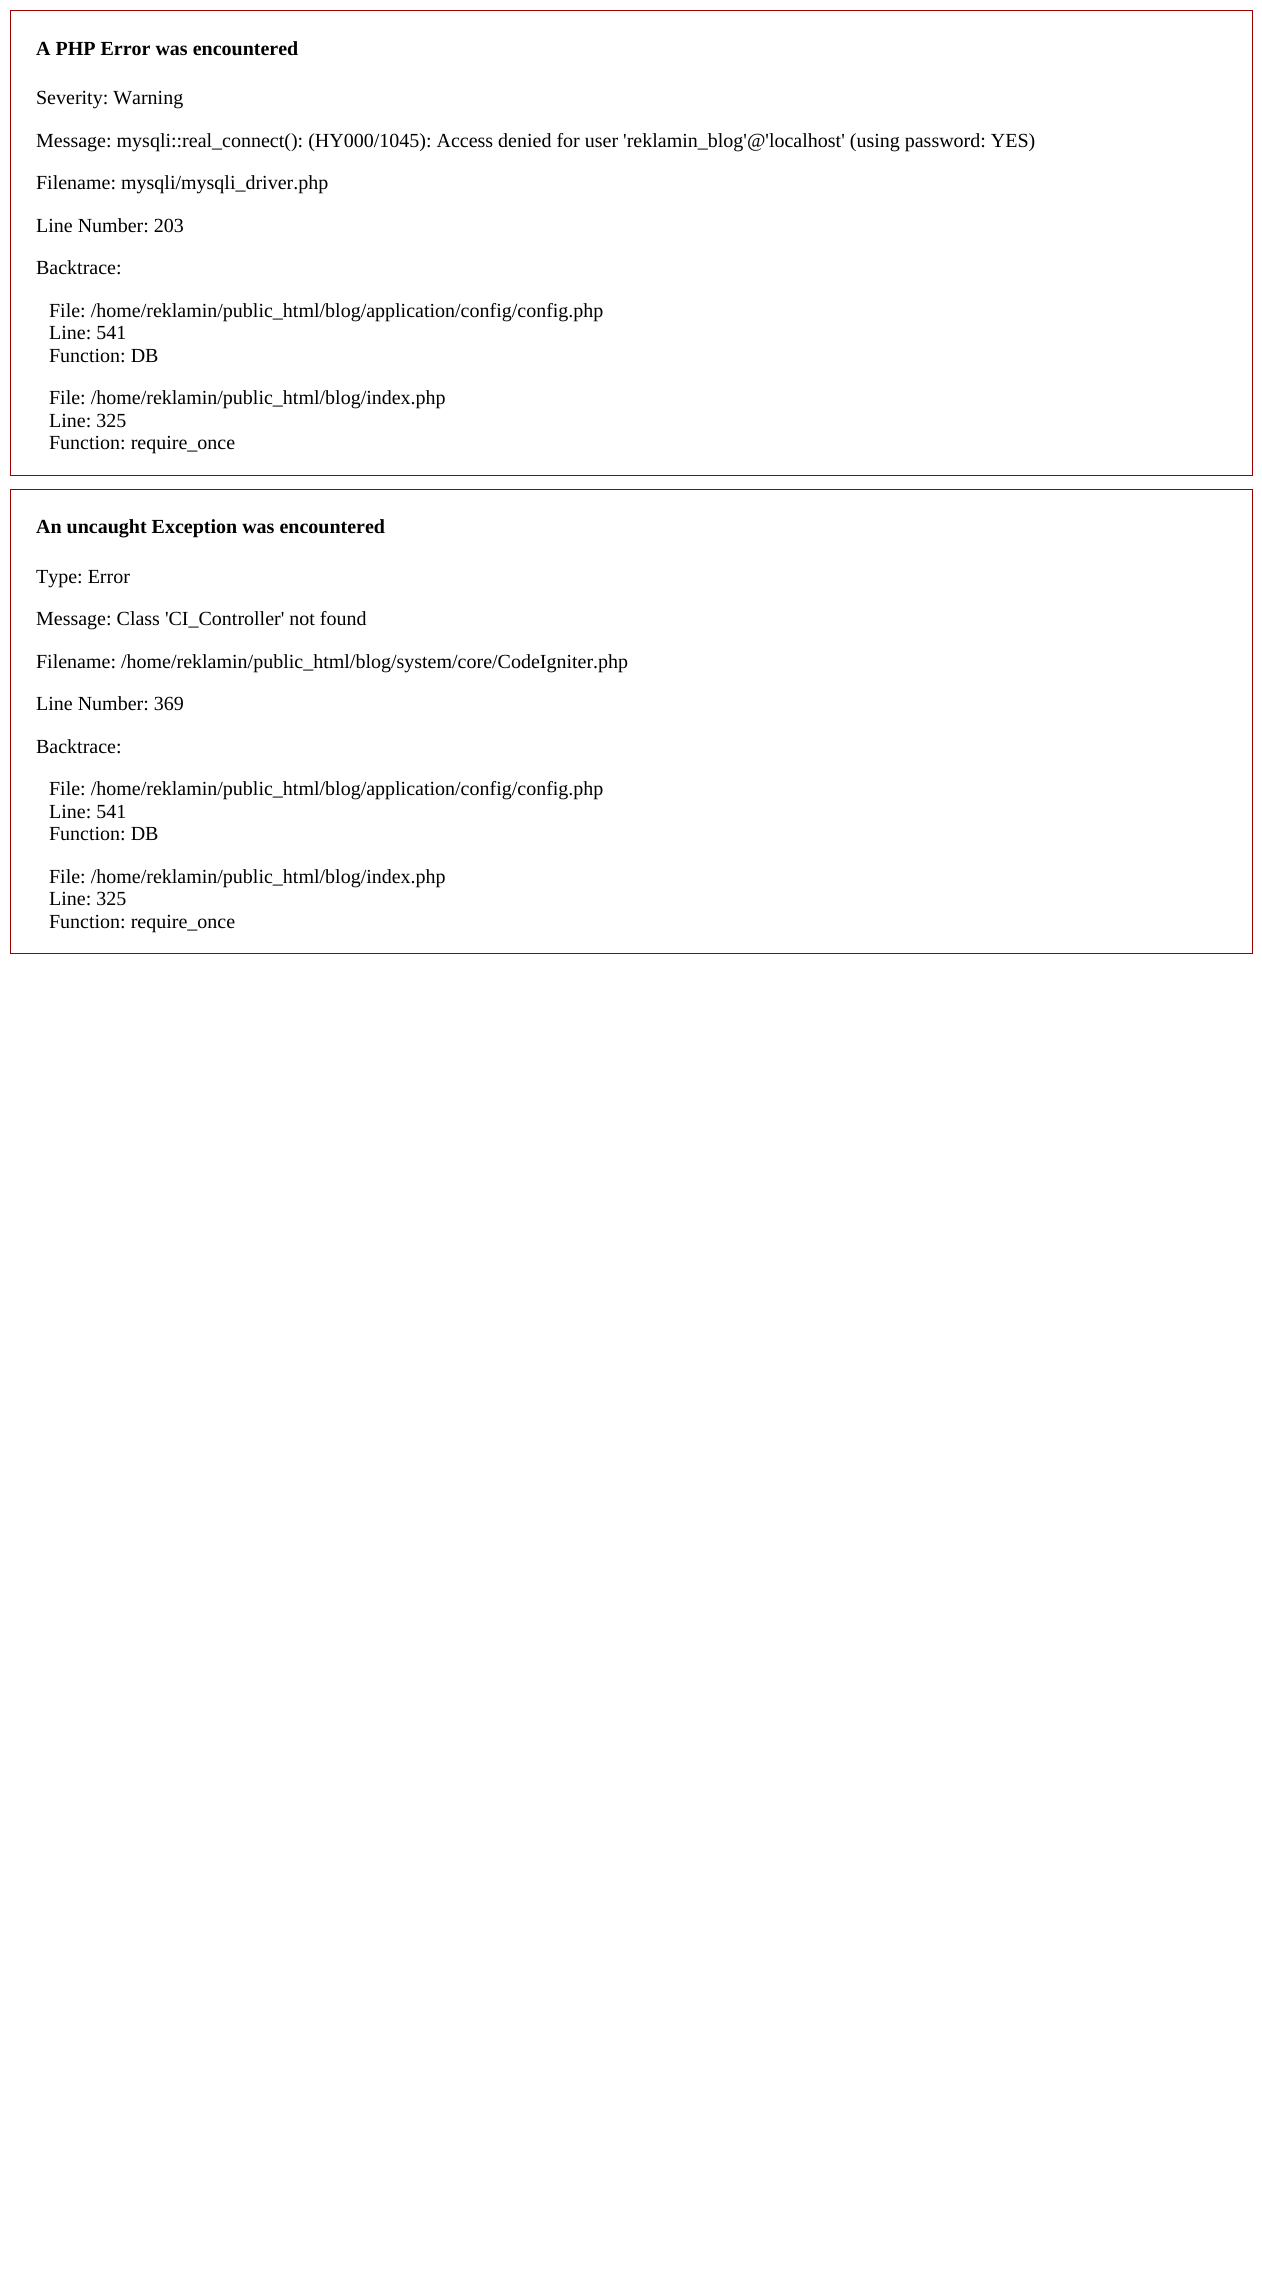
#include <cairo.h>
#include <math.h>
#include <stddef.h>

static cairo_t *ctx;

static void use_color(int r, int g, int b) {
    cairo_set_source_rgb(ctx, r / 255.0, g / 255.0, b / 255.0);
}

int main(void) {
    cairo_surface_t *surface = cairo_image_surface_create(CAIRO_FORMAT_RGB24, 1262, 2279);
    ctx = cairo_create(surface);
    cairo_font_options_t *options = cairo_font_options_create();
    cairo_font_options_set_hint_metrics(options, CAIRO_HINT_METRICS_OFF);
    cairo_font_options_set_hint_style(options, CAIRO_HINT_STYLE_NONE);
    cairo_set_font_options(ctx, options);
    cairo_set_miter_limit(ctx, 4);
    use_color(255, 255, 255);
    cairo_paint(ctx);
    cairo_rectangle(ctx, 10.5, 10.5, 1242, 465);
    use_color(153, 0, 0);
    cairo_set_line_width(ctx, 1);
    cairo_stroke(ctx);
    cairo_select_font_face(ctx, "Liberation Serif", CAIRO_FONT_SLANT_NORMAL, CAIRO_FONT_WEIGHT_BOLD);
    cairo_set_font_size(ctx, 20);
    use_color(0, 0, 0);
    cairo_move_to(ctx, 36, 55);
    cairo_show_text(ctx, "A PHP Error was encountered");
    cairo_select_font_face(ctx, "Liberation Serif", CAIRO_FONT_SLANT_NORMAL, CAIRO_FONT_WEIGHT_NORMAL);
    cairo_move_to(ctx, 36, 104);
    cairo_show_text(ctx, "Severity: Warning");
    cairo_move_to(ctx, 36, 147);
    cairo_show_text(ctx, "Message: mysqli::real_connect(): (HY000/1045): Access denied for user 'reklamin_blog'@'localhost' (using password: YES)");
    cairo_move_to(ctx, 36, 189);
    cairo_show_text(ctx, "Filename: mysqli/mysqli_driver.php");
    cairo_move_to(ctx, 36, 232);
    cairo_show_text(ctx, "Line Number: 203");
    cairo_move_to(ctx, 36, 274);
    cairo_show_text(ctx, "Backtrace:");
    cairo_move_to(ctx, 49, 317);
    cairo_show_text(ctx, "File: /home/reklamin/public_html/blog/application/config/config.php");
    cairo_move_to(ctx, 49, 339);
    cairo_show_text(ctx, "Line: 541");
    cairo_move_to(ctx, 49, 362);
    cairo_show_text(ctx, "Function: DB");
    cairo_move_to(ctx, 49, 404);
    cairo_show_text(ctx, "File: /home/reklamin/public_html/blog/index.php");
    cairo_move_to(ctx, 49, 427);
    cairo_show_text(ctx, "Line: 325");
    cairo_move_to(ctx, 49, 449);
    cairo_show_text(ctx, "Function: require_once");
    cairo_rectangle(ctx, 10.5, 489.5, 1242, 464);
    use_color(153, 0, 0);
    cairo_stroke(ctx);
    cairo_select_font_face(ctx, "Liberation Serif", CAIRO_FONT_SLANT_NORMAL, CAIRO_FONT_WEIGHT_BOLD);
    use_color(0, 0, 0);
    cairo_move_to(ctx, 36, 533);
    cairo_show_text(ctx, "An uncaught Exception was encountered");
    cairo_select_font_face(ctx, "Liberation Serif", CAIRO_FONT_SLANT_NORMAL, CAIRO_FONT_WEIGHT_NORMAL);
    cairo_move_to(ctx, 36, 583);
    cairo_show_text(ctx, "Type: Error");
    cairo_move_to(ctx, 36, 625);
    cairo_show_text(ctx, "Message: Class 'CI_Controller' not found");
    cairo_move_to(ctx, 36, 668);
    cairo_show_text(ctx, "Filename: /home/reklamin/public_html/blog/system/core/CodeIgniter.php");
    cairo_move_to(ctx, 36, 710);
    cairo_show_text(ctx, "Line Number: 369");
    cairo_move_to(ctx, 36, 753);
    cairo_show_text(ctx, "Backtrace:");
    cairo_move_to(ctx, 49, 795);
    cairo_show_text(ctx, "File: /home/reklamin/public_html/blog/application/config/config.php");
    cairo_move_to(ctx, 49, 818);
    cairo_show_text(ctx, "Line: 541");
    cairo_move_to(ctx, 49, 840);
    cairo_show_text(ctx, "Function: DB");
    cairo_move_to(ctx, 49, 883);
    cairo_show_text(ctx, "File: /home/reklamin/public_html/blog/index.php");
    cairo_move_to(ctx, 49, 905);
    cairo_show_text(ctx, "Line: 325");
    cairo_move_to(ctx, 49, 928);
    cairo_show_text(ctx, "Function: require_once");
    cairo_surface_write_to_png(surface, "result.png");
    cairo_font_options_destroy(options);
    cairo_destroy(ctx);
    cairo_surface_destroy(surface);
    return 0;
}
